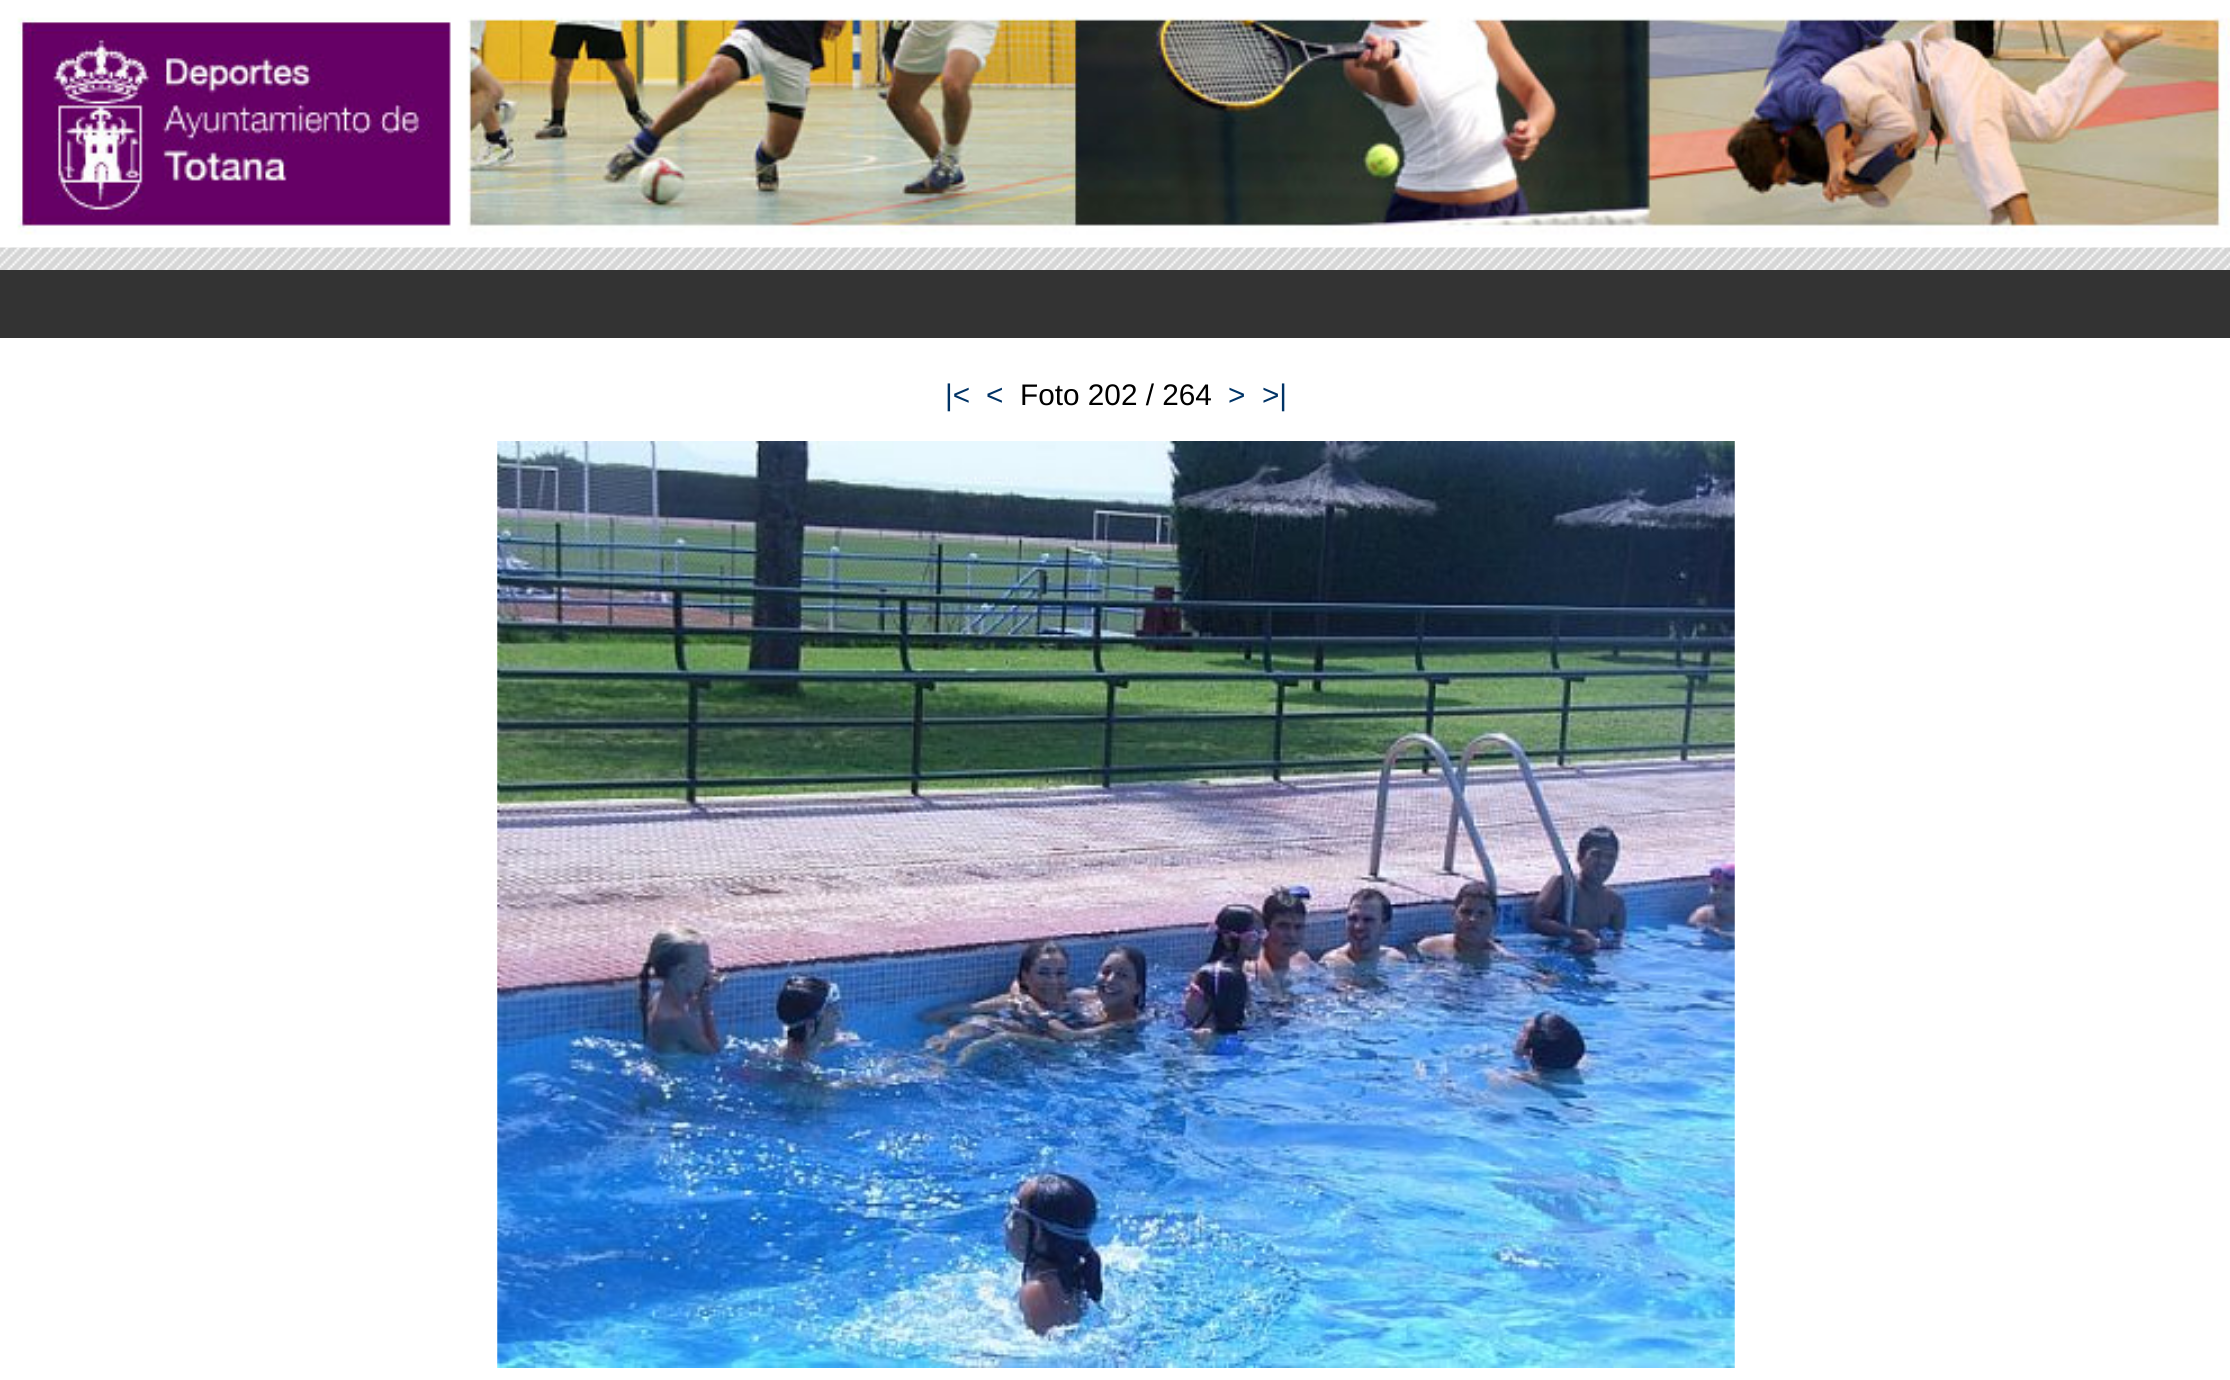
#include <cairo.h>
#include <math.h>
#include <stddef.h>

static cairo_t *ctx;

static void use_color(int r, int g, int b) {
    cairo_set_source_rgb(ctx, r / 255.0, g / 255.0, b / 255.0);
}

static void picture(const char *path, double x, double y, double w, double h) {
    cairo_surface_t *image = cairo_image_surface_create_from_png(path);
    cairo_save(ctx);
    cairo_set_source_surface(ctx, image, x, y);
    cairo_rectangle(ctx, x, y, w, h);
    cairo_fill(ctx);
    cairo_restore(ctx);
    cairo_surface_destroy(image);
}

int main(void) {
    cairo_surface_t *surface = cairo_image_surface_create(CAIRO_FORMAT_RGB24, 2230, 1380);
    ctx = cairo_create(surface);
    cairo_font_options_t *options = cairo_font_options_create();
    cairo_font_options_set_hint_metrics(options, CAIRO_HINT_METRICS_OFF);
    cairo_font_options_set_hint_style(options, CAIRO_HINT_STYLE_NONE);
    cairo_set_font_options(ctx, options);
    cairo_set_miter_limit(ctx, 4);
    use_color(255, 255, 255);
    cairo_paint(ctx);
    picture("img1.png", 0, 247, 2230, 23);
    picture("img2.png", 0, 0, 2230, 248);
    use_color(51, 51, 51);
    cairo_rectangle(ctx, 0, 270, 2230, 68);
    cairo_fill(ctx);
    cairo_select_font_face(ctx, "Liberation Sans", CAIRO_FONT_SLANT_NORMAL, CAIRO_FONT_WEIGHT_NORMAL);
    cairo_set_font_size(ctx, 29.75);
    use_color(0, 51, 102);
    cairo_move_to(ctx, 945, 405);
    cairo_show_text(ctx, "|<");
    cairo_move_to(ctx, 986, 405);
    cairo_show_text(ctx, "<");
    use_color(0, 0, 0);
    cairo_move_to(ctx, 1020, 405);
    cairo_show_text(ctx, "Foto 202 / 264");
    use_color(0, 51, 102);
    cairo_move_to(ctx, 1228, 405);
    cairo_show_text(ctx, ">");
    cairo_move_to(ctx, 1262, 405);
    cairo_show_text(ctx, ">|");
    picture("img3.png", 497, 441, 1238, 927);
    cairo_surface_write_to_png(surface, "result.png");
    cairo_font_options_destroy(options);
    cairo_destroy(ctx);
    cairo_surface_destroy(surface);
    return 0;
}
